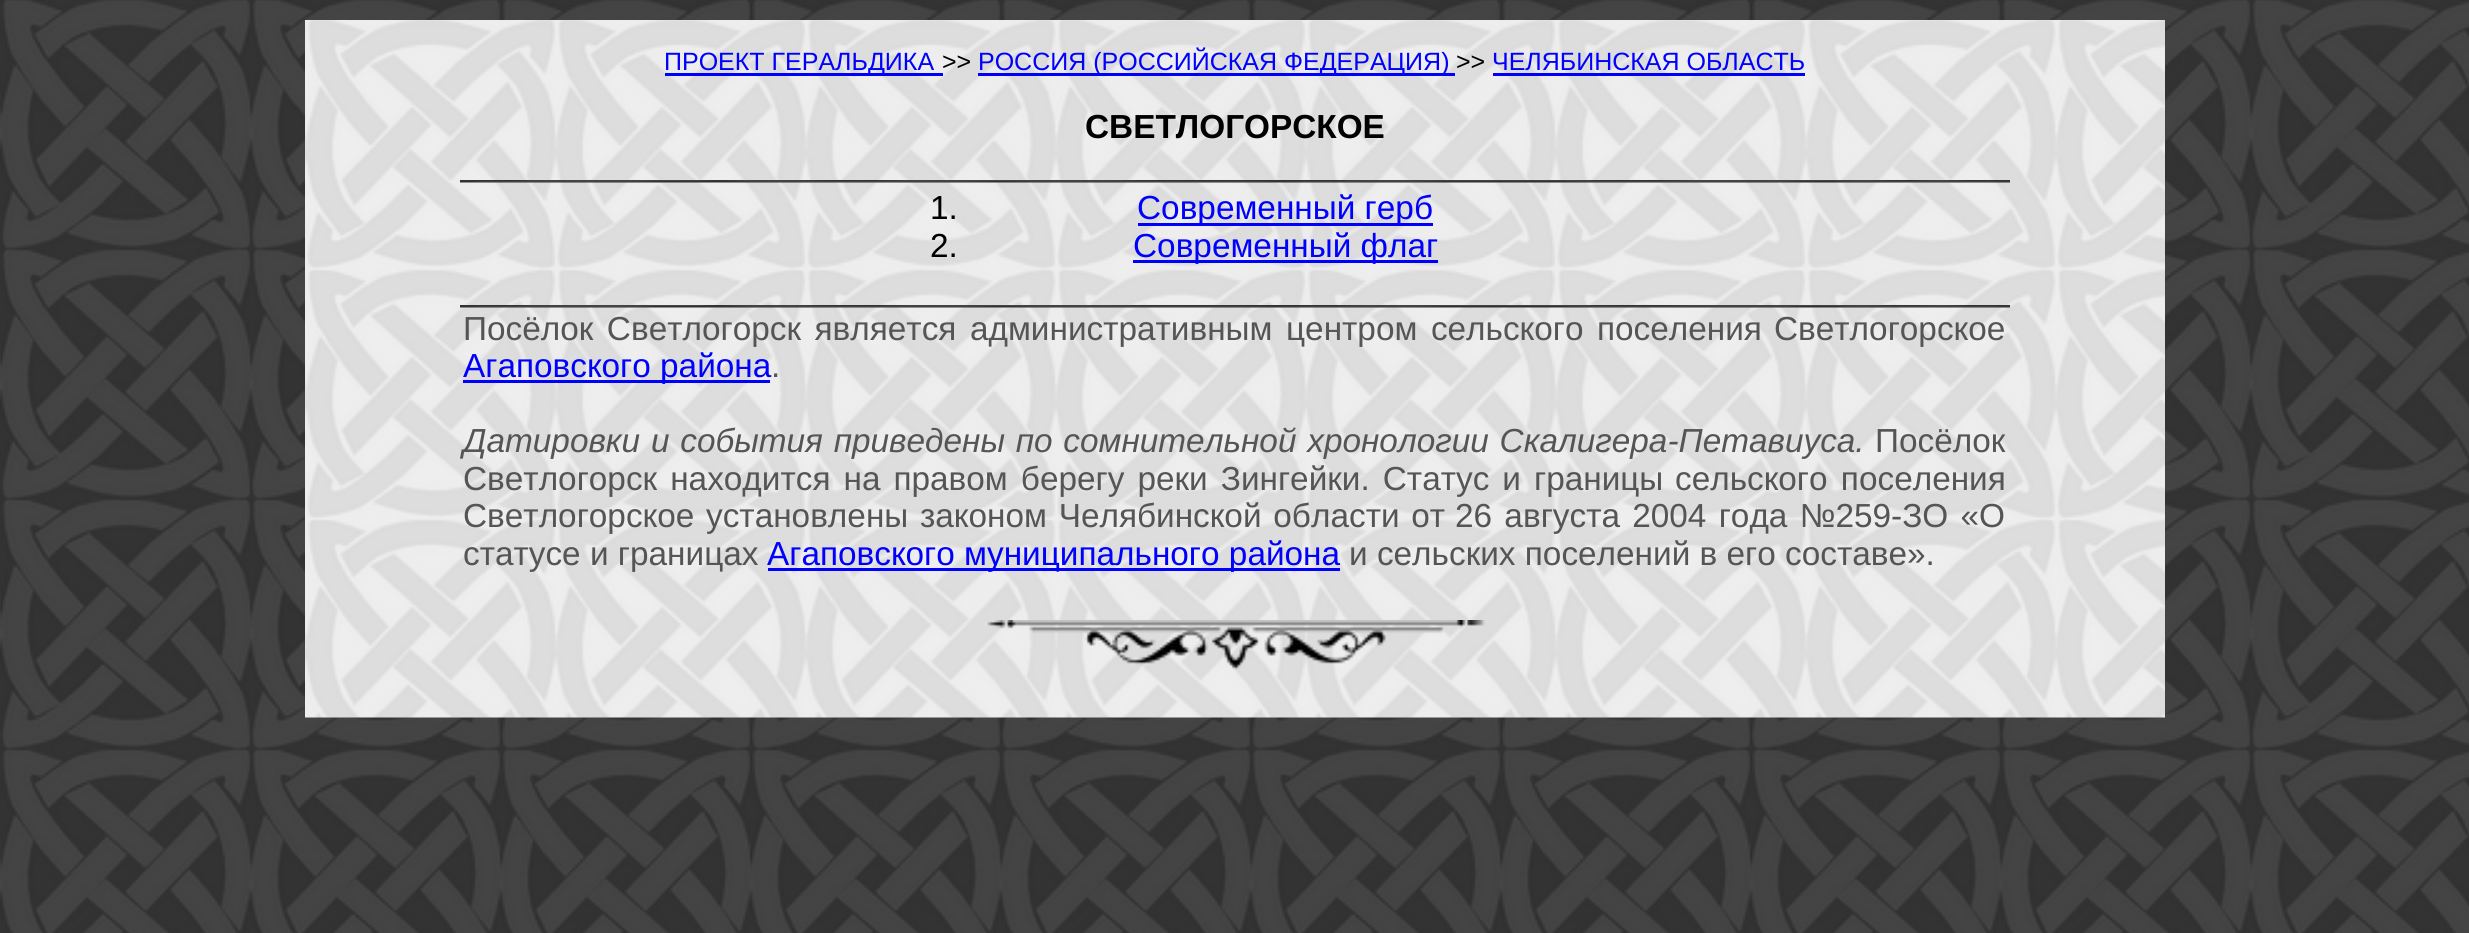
#include <cairo.h>
#include <math.h>
#include <stddef.h>

static cairo_t *ctx;

static void use_color(int r, int g, int b) {
    cairo_set_source_rgb(ctx, r / 255.0, g / 255.0, b / 255.0);
}

static void spaced_text(double x, double y, const char *s, double letter, double word) {
    cairo_move_to(ctx, x, y);
    while (*s) {
        char ch[5] = {0};
        int n = 0;
        do ch[n++] = *s++; while ((*s & 0xC0) == 0x80);
        cairo_show_text(ctx, ch);
        cairo_rel_move_to(ctx, letter + word * (*ch == ' '), 0);
    }
}

static void picture(const char *path, double x, double y, double w, double h) {
    cairo_surface_t *image = cairo_image_surface_create_from_png(path);
    cairo_save(ctx);
    cairo_set_source_surface(ctx, image, x, y);
    cairo_rectangle(ctx, x, y, w, h);
    cairo_fill(ctx);
    cairo_restore(ctx);
    cairo_surface_destroy(image);
}

int main(void) {
    cairo_surface_t *surface = cairo_image_surface_create(CAIRO_FORMAT_RGB24, 2469, 933);
    ctx = cairo_create(surface);
    cairo_font_options_t *options = cairo_font_options_create();
    cairo_font_options_set_hint_metrics(options, CAIRO_HINT_METRICS_OFF);
    cairo_font_options_set_hint_style(options, CAIRO_HINT_STYLE_NONE);
    cairo_set_font_options(ctx, options);
    cairo_set_miter_limit(ctx, 4);
    use_color(255, 255, 255);
    cairo_paint(ctx);
    picture("img1.png", 0, 0, 2469, 933);
    picture("img2.png", 305, 20, 1860, 698);
    use_color(0, 0, 255);
    cairo_rectangle(ctx, 665, 73, 278, 3);
    cairo_fill(ctx);
    cairo_select_font_face(ctx, "Liberation Sans", CAIRO_FONT_SLANT_NORMAL, CAIRO_FONT_WEIGHT_NORMAL);
    cairo_set_font_size(ctx, 25);
    cairo_move_to(ctx, 664, 70);
    cairo_show_text(ctx, "ПРОЕКТ ГЕРАЛЬДИКА");
    use_color(0, 0, 0);
    cairo_move_to(ctx, 942, 70);
    cairo_show_text(ctx, ">>");
    use_color(0, 0, 255);
    cairo_rectangle(ctx, 978, 73, 477, 3);
    cairo_fill(ctx);
    cairo_move_to(ctx, 978, 70);
    cairo_show_text(ctx, "РОССИЯ (РОССИЙСКАЯ ФЕДЕРАЦИЯ)");
    use_color(0, 0, 0);
    cairo_move_to(ctx, 1456, 70);
    cairo_show_text(ctx, ">>");
    use_color(0, 0, 255);
    cairo_move_to(ctx, 1492, 70);
    cairo_show_text(ctx, "ЧЕЛЯБИНСКАЯ ОБЛАСТЬ");
    cairo_rectangle(ctx, 1493, 73, 312, 3);
    cairo_fill(ctx);
    cairo_select_font_face(ctx, "Liberation Sans", CAIRO_FONT_SLANT_NORMAL, CAIRO_FONT_WEIGHT_BOLD);
    cairo_set_font_size(ctx, 33.35);
    use_color(0, 0, 0);
    cairo_move_to(ctx, 1085, 138);
    cairo_show_text(ctx, "СВЕТЛОГОРСКОЕ");
    picture("img3.png", 460, 180, 1550, 3);
    cairo_select_font_face(ctx, "Liberation Sans", CAIRO_FONT_SLANT_NORMAL, CAIRO_FONT_WEIGHT_NORMAL);
    cairo_move_to(ctx, 930, 219);
    cairo_show_text(ctx, "1.");
    use_color(0, 0, 255);
    cairo_rectangle(ctx, 1138, 223, 295, 3);
    cairo_fill(ctx);
    cairo_move_to(ctx, 1137, 219);
    cairo_show_text(ctx, "Современный герб");
    use_color(0, 0, 0);
    cairo_move_to(ctx, 930, 257);
    cairo_show_text(ctx, "2.");
    use_color(0, 0, 255);
    cairo_rectangle(ctx, 1133, 260, 305, 3);
    cairo_fill(ctx);
    cairo_move_to(ctx, 1133, 257);
    cairo_show_text(ctx, "Современный флаг");
    picture("img4.png", 460, 305, 1550, 3);
    use_color(85, 85, 85);
    spaced_text(463, 340, "Посёлок Светлогорск является административным центром сельского поселения", 0, 4.25);
    cairo_move_to(ctx, 1774, 340);
    cairo_show_text(ctx, "Светлогорское");
    use_color(0, 0, 255);
    cairo_rectangle(ctx, 463, 380, 307, 3);
    cairo_fill(ctx);
    cairo_move_to(ctx, 463, 377);
    cairo_show_text(ctx, "Агаповского района");
    use_color(85, 85, 85);
    cairo_move_to(ctx, 771, 377);
    cairo_show_text(ctx, ".");
    cairo_select_font_face(ctx, "Liberation Sans", CAIRO_FONT_SLANT_ITALIC, CAIRO_FONT_WEIGHT_NORMAL);
    spaced_text(463, 452, "Датировки и события приведены по сомнительной хронологии Скалигера-Петавиуса.", 0, 1.5);
    cairo_select_font_face(ctx, "Liberation Sans", CAIRO_FONT_SLANT_NORMAL, CAIRO_FONT_WEIGHT_NORMAL);
    cairo_move_to(ctx, 1875, 452);
    cairo_show_text(ctx, "Посёлок");
    spaced_text(463, 490, "Светлогорск находится на правом берегу реки Зингейки. Статус и границы", 0, 3.75);
    spaced_text(1675, 490, "сельского поселения", 0, 4);
    spaced_text(463, 527, "Светлогорское установлены законом Челябинской области от", 0, 2.5);
    spaced_text(1455, 527, "26 августа 2004 года №259-ЗО «О", 0, 3);
    cairo_move_to(ctx, 463, 565);
    cairo_show_text(ctx, "статусе и границах");
    use_color(0, 0, 255);
    cairo_rectangle(ctx, 768, 568, 572, 3);
    cairo_fill(ctx);
    cairo_move_to(ctx, 767, 565);
    cairo_show_text(ctx, "Агаповского муниципального района");
    use_color(85, 85, 85);
    cairo_move_to(ctx, 1349, 565);
    cairo_show_text(ctx, "и сельских поселений в его составе».");
    picture("img5.png", 985, 620, 500, 50);
    cairo_surface_write_to_png(surface, "result.png");
    cairo_font_options_destroy(options);
    cairo_destroy(ctx);
    cairo_surface_destroy(surface);
    return 0;
}
